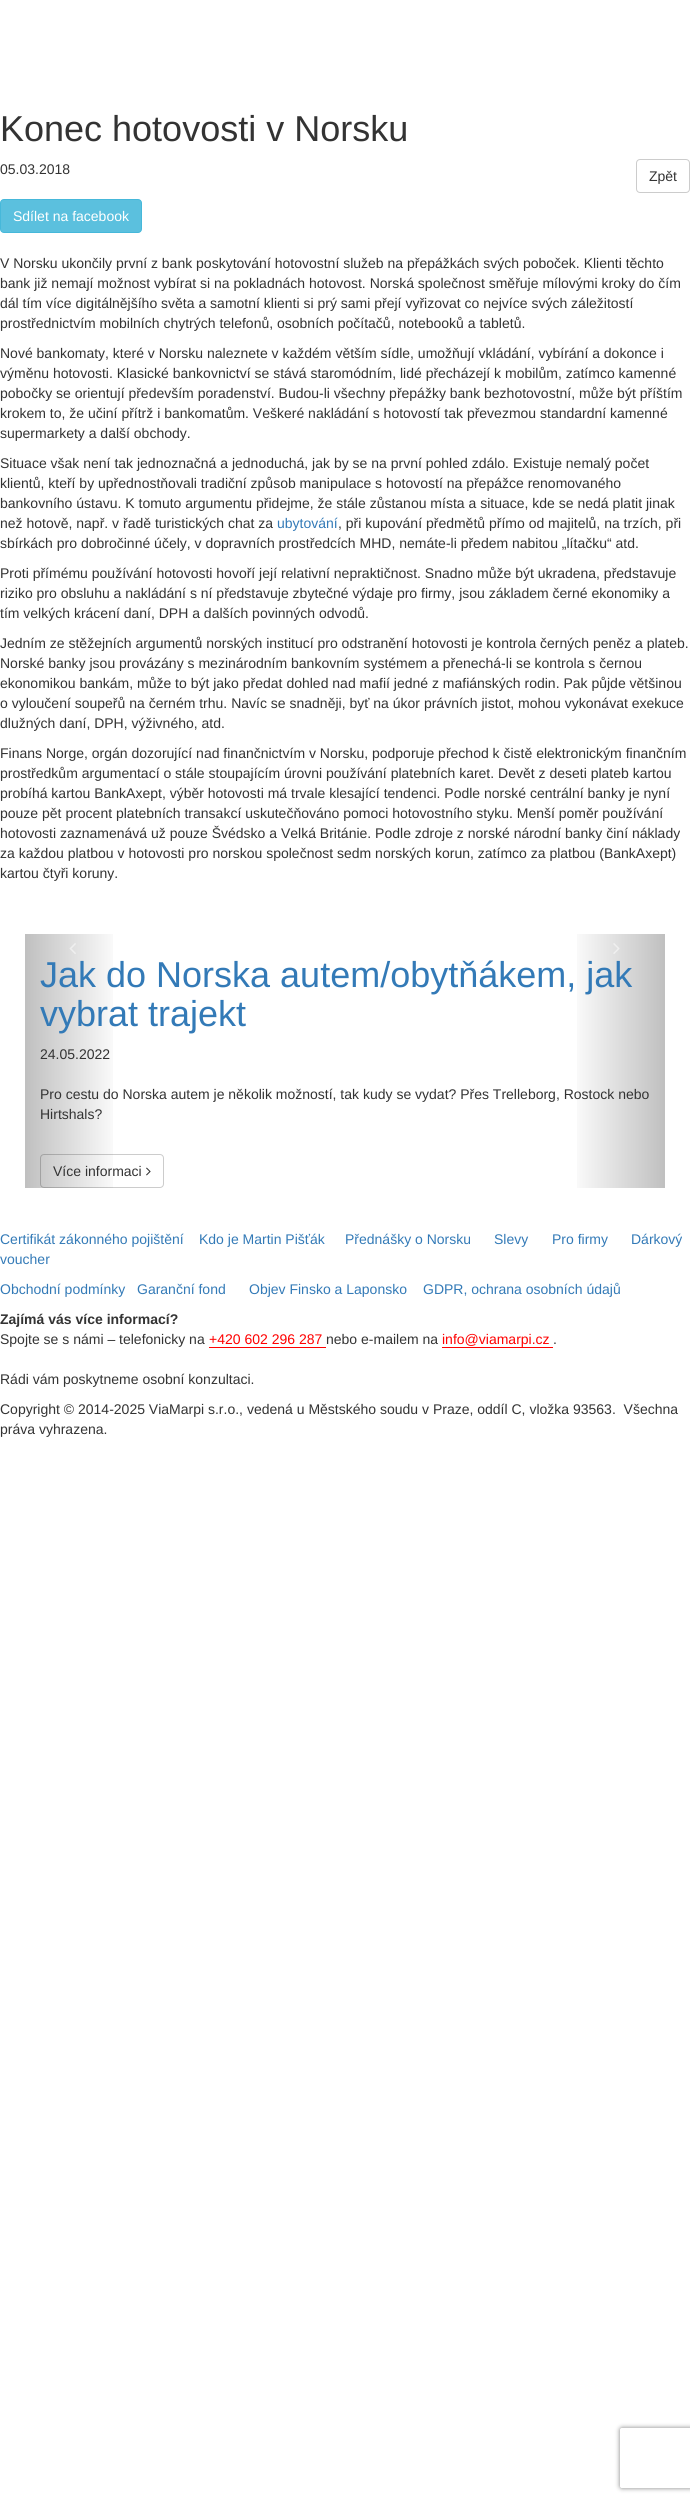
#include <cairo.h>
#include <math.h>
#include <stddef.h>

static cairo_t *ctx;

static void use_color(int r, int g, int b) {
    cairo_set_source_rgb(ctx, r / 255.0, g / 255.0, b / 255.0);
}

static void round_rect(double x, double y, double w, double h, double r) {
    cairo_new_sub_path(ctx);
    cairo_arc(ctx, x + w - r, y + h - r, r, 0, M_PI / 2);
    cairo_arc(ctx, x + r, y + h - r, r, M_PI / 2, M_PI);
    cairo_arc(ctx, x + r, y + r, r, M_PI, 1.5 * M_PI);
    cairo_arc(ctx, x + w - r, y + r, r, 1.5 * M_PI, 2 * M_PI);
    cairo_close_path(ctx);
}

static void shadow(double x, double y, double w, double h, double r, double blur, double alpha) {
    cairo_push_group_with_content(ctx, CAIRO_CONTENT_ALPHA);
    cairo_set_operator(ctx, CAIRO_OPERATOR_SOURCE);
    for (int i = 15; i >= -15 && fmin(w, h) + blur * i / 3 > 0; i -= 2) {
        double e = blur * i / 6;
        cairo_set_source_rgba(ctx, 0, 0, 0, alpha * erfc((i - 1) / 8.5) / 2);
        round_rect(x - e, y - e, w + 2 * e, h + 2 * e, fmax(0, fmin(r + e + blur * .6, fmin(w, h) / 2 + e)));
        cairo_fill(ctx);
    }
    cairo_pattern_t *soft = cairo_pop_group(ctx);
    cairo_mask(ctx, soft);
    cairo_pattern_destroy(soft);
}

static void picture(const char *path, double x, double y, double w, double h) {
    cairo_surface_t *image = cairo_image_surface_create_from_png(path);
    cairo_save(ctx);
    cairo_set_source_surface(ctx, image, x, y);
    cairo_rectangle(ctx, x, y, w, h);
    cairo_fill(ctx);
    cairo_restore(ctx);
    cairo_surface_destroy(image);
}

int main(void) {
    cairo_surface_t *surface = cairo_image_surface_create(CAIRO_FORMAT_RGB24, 690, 2502);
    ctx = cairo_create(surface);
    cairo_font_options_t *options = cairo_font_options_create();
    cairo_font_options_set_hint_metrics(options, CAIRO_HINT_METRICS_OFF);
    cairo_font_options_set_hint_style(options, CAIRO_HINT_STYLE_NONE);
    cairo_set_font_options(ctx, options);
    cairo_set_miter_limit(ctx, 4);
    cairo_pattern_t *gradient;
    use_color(255, 255, 255);
    cairo_paint(ctx);
    cairo_select_font_face(ctx, "Liberation Sans", CAIRO_FONT_SLANT_NORMAL, CAIRO_FONT_WEIGHT_NORMAL);
    cairo_set_font_size(ctx, 36);
    use_color(51, 51, 51);
    cairo_move_to(ctx, 0, 141);
    cairo_show_text(ctx, "Konec hotovosti v Norsku");
    cairo_set_font_size(ctx, 14);
    cairo_move_to(ctx, 0, 174);
    cairo_show_text(ctx, "05.03.2018");
    round_rect(636.5, 159.5, 53, 33, 3.5);
    use_color(204, 204, 204);
    cairo_set_line_width(ctx, 1);
    cairo_stroke(ctx);
    use_color(51, 51, 51);
    cairo_move_to(ctx, 649, 181);
    cairo_show_text(ctx, "Zpět");
    use_color(91, 192, 222);
    round_rect(0.5, 199.5, 141, 33, 3.5);
    cairo_fill_preserve(ctx);
    use_color(70, 184, 218);
    cairo_stroke(ctx);
    use_color(255, 255, 255);
    cairo_move_to(ctx, 13, 221);
    cairo_show_text(ctx, "Sdílet na facebook");
    use_color(51, 51, 51);
    cairo_move_to(ctx, 0, 268);
    cairo_show_text(ctx, "V Norsku ukončily první z bank poskytování hotovostní služeb na přepážkách svých poboček. Klienti těchto");
    cairo_move_to(ctx, 0, 288);
    cairo_show_text(ctx, "bank již nemají možnost vybírat si na pokladnách hotovost. Norská společnost směřuje mílovými kroky do čím");
    cairo_move_to(ctx, 0, 308);
    cairo_show_text(ctx, "dál tím více digitálnějšího světa a samotní klienti si prý sami přejí vyřizovat co nejvíce svých záležitostí");
    cairo_move_to(ctx, 0, 328);
    cairo_show_text(ctx, "prostřednictvím mobilních chytrých telefonů, osobních počítačů, notebooků a tabletů.");
    cairo_move_to(ctx, 0, 358);
    cairo_show_text(ctx, "Nové bankomaty, které v Norsku naleznete v každém větším sídle, umožňují vkládání, vybírání a dokonce i");
    cairo_move_to(ctx, 0, 378);
    cairo_show_text(ctx, "výměnu hotovosti. Klasické bankovnictví se stává staromódním, lidé přecházejí k mobilům, zatímco kamenné");
    cairo_move_to(ctx, 0, 398);
    cairo_show_text(ctx, "pobočky se orientují především poradenství. Budou-li všechny přepážky bank bezhotovostní, může být příštím");
    cairo_move_to(ctx, 0, 418);
    cairo_show_text(ctx, "krokem to, že učiní přítrž i bankomatům. Veškeré nakládání s hotovostí tak převezmou standardní kamenné");
    cairo_move_to(ctx, 0, 438);
    cairo_show_text(ctx, "supermarkety a další obchody.");
    cairo_move_to(ctx, 0, 468);
    cairo_show_text(ctx, "Situace však není tak jednoznačná a jednoduchá, jak by se na první pohled zdálo. Existuje nemalý počet");
    cairo_move_to(ctx, 0, 488);
    cairo_show_text(ctx, "klientů, kteří by upřednostňovali tradiční způsob manipulace s hotovostí na přepážce renomovaného");
    cairo_move_to(ctx, 0, 508);
    cairo_show_text(ctx, "bankovního ústavu. K tomuto argumentu přidejme, že stále zůstanou místa a situace, kde se nedá platit jinak");
    cairo_move_to(ctx, 0, 528);
    cairo_show_text(ctx, "než hotově, např. v řadě turistických chat za");
    use_color(51, 122, 183);
    cairo_move_to(ctx, 277, 528);
    cairo_show_text(ctx, "ubytování");
    use_color(51, 51, 51);
    cairo_move_to(ctx, 338, 528);
    cairo_show_text(ctx, ", při kupování předmětů přímo od majitelů, na trzích, při");
    cairo_move_to(ctx, 0, 548);
    cairo_show_text(ctx, "sbírkách pro dobročinné účely, v dopravních prostředcích MHD, nemáte-li předem nabitou „lítačku“ atd.");
    cairo_move_to(ctx, 0, 578);
    cairo_show_text(ctx, "Proti přímému používání hotovosti hovoří její relativní nepraktičnost. Snadno může být ukradena, představuje");
    cairo_move_to(ctx, 0, 598);
    cairo_show_text(ctx, "riziko pro obsluhu a nakládání s ní představuje zbytečné výdaje pro firmy, jsou základem černé ekonomiky a");
    cairo_move_to(ctx, 0, 618);
    cairo_show_text(ctx, "tím velkých krácení daní, DPH a dalších povinných odvodů.");
    cairo_move_to(ctx, 0, 648);
    cairo_show_text(ctx, "Jedním ze stěžejních argumentů norských institucí pro odstranění hotovosti je kontrola černých peněz a plateb.");
    cairo_move_to(ctx, 0, 668);
    cairo_show_text(ctx, "Norské banky jsou provázány s mezinárodním bankovním systémem a přenechá-li se kontrola s černou");
    cairo_move_to(ctx, 0, 688);
    cairo_show_text(ctx, "ekonomikou bankám, může to být jako předat dohled nad mafií jedné z mafiánských rodin. Pak půjde většinou");
    cairo_move_to(ctx, 0, 708);
    cairo_show_text(ctx, "o vyloučení soupeřů na černém trhu. Navíc se snadněji, byť na úkor právních jistot, mohou vykonávat exekuce");
    cairo_move_to(ctx, 0, 728);
    cairo_show_text(ctx, "dlužných daní, DPH, výživného, atd.");
    cairo_move_to(ctx, 0, 758);
    cairo_show_text(ctx, "Finans Norge, orgán dozorující nad finančnictvím v Norsku, podporuje přechod k čistě elektronickým finančním");
    cairo_move_to(ctx, 0, 778);
    cairo_show_text(ctx, "prostředkům argumentací o stále stoupajícím úrovni používání platebních karet. Devět z deseti plateb kartou");
    cairo_move_to(ctx, 0, 798);
    cairo_show_text(ctx, "probíhá kartou BankAxept, výběr hotovosti má trvale klesající tendenci. Podle norské centrální banky je nyní");
    cairo_move_to(ctx, 0, 818);
    cairo_show_text(ctx, "pouze pět procent platebních transakcí uskutečňováno pomoci hotovostního styku. Menší poměr používání");
    cairo_move_to(ctx, 0, 838);
    cairo_show_text(ctx, "hotovosti zaznamenává už pouze Švédsko a Velká Británie. Podle zdroje z norské národní banky činí náklady");
    cairo_move_to(ctx, 0, 858);
    cairo_show_text(ctx, "za každou platbou v hotovosti pro norskou společnost sedm norských korun, zatímco za platbou (BankAxept)");
    cairo_move_to(ctx, 0, 878);
    cairo_show_text(ctx, "kartou čtyři koruny.");
    round_rect(40.5, 1154.5, 123, 33, 3.5);
    use_color(204, 204, 204);
    cairo_stroke(ctx);
    gradient = cairo_pattern_create_linear(25, 1061, 121, 1061);
    cairo_pattern_add_color_stop_rgba(gradient, 0, 0, 0, 0, 0.25);
    cairo_pattern_add_color_stop_rgba(gradient, 1, 0, 0, 0, 0);
    cairo_set_source(ctx, gradient);
    cairo_pattern_destroy(gradient);
    cairo_rectangle(ctx, 25, 934, 88, 254);
    cairo_fill(ctx);
    picture("img1.png", 69, 943, 7, 11);
    gradient = cairo_pattern_create_linear(569, 1061, 665, 1061);
    cairo_pattern_add_color_stop_rgba(gradient, 0, 0, 0, 0, 0);
    cairo_pattern_add_color_stop_rgba(gradient, 1, 0, 0, 0, 0.25);
    cairo_set_source(ctx, gradient);
    cairo_pattern_destroy(gradient);
    cairo_rectangle(ctx, 577, 934, 88, 254);
    cairo_fill(ctx);
    picture("img2.png", 613, 943, 7, 11);
    cairo_set_font_size(ctx, 36);
    use_color(51, 122, 183);
    cairo_move_to(ctx, 40, 987);
    cairo_show_text(ctx, "Jak do Norska autem/obytňákem, jak");
    cairo_move_to(ctx, 40, 1026);
    cairo_show_text(ctx, "vybrat trajekt");
    cairo_set_font_size(ctx, 14);
    use_color(51, 51, 51);
    cairo_move_to(ctx, 40, 1059);
    cairo_show_text(ctx, "24.05.2022");
    cairo_move_to(ctx, 40, 1099);
    cairo_show_text(ctx, "Pro cestu do Norska autem je několik možností, tak kudy se vydat? Přes Trelleborg, Rostock nebo");
    cairo_move_to(ctx, 40, 1119);
    cairo_show_text(ctx, "Hirtshals?");
    cairo_move_to(ctx, 53, 1176);
    cairo_show_text(ctx, "Více informaci");
    picture("img3.png", 146, 1167, 5, 9);
    use_color(51, 122, 183);
    cairo_move_to(ctx, 0, 1244);
    cairo_show_text(ctx, "Certifikát zákonného pojištění");
    cairo_move_to(ctx, 199, 1244);
    cairo_show_text(ctx, "Kdo je Martin Pišťák");
    cairo_move_to(ctx, 345, 1244);
    cairo_show_text(ctx, "Přednášky o Norsku");
    cairo_move_to(ctx, 494, 1244);
    cairo_show_text(ctx, "Slevy");
    cairo_move_to(ctx, 552, 1244);
    cairo_show_text(ctx, "Pro firmy");
    cairo_move_to(ctx, 631, 1244);
    cairo_show_text(ctx, "Dárkový");
    cairo_move_to(ctx, 0, 1264);
    cairo_show_text(ctx, "voucher");
    cairo_move_to(ctx, 0, 1294);
    cairo_show_text(ctx, "Obchodní podmínky");
    cairo_move_to(ctx, 137, 1294);
    cairo_show_text(ctx, "Garanční fond");
    cairo_move_to(ctx, 249, 1294);
    cairo_show_text(ctx, "Objev Finsko a Laponsko");
    cairo_move_to(ctx, 423, 1294);
    cairo_show_text(ctx, "GDPR, ochrana osobních údajů");
    cairo_select_font_face(ctx, "Liberation Sans", CAIRO_FONT_SLANT_NORMAL, CAIRO_FONT_WEIGHT_BOLD);
    use_color(51, 51, 51);
    cairo_move_to(ctx, 0, 1324);
    cairo_show_text(ctx, "Zajímá vás více informací?");
    cairo_select_font_face(ctx, "Liberation Sans", CAIRO_FONT_SLANT_NORMAL, CAIRO_FONT_WEIGHT_NORMAL);
    cairo_move_to(ctx, 0, 1344);
    cairo_show_text(ctx, "Spojte se s námi – telefonicky na");
    use_color(255, 0, 0);
    cairo_move_to(ctx, 209, 1344);
    cairo_show_text(ctx, "+420 602 296 287");
    cairo_rectangle(ctx, 209, 1347, 117, 1);
    cairo_fill(ctx);
    use_color(51, 51, 51);
    cairo_move_to(ctx, 326, 1344);
    cairo_show_text(ctx, "nebo e-mailem na");
    use_color(255, 0, 0);
    cairo_move_to(ctx, 442, 1344);
    cairo_show_text(ctx, "info@viamarpi.cz");
    cairo_rectangle(ctx, 442, 1347, 111, 1);
    cairo_fill(ctx);
    use_color(51, 51, 51);
    cairo_move_to(ctx, 553, 1344);
    cairo_show_text(ctx, ".");
    cairo_move_to(ctx, 0, 1384);
    cairo_show_text(ctx, "Rádi vám poskytneme osobní konzultaci.");
    cairo_move_to(ctx, 0, 1414);
    cairo_show_text(ctx, "Copyright © 2014-2025 ViaMarpi s.r.o., vedená u Městského soudu v Praze, oddíl C, vložka 93563.  Všechna");
    cairo_move_to(ctx, 0, 1434);
    cairo_show_text(ctx, "práva vyhrazena.");
    cairo_save(ctx);
    cairo_set_fill_rule(ctx, CAIRO_FILL_RULE_EVEN_ODD);
    cairo_new_path(ctx);
    cairo_move_to(ctx, 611, 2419);
    cairo_line_to(ctx, 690, 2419);
    cairo_line_to(ctx, 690, 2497);
    cairo_line_to(ctx, 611, 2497);
    cairo_close_path(ctx);
    cairo_move_to(ctx, 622, 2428);
    cairo_line_to(ctx, 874, 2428);
    cairo_curve_to(ctx, 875, 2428, 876, 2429, 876, 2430);
    cairo_line_to(ctx, 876, 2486);
    cairo_curve_to(ctx, 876, 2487, 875, 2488, 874, 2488);
    cairo_line_to(ctx, 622, 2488);
    cairo_curve_to(ctx, 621, 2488, 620, 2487, 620, 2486);
    cairo_line_to(ctx, 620, 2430);
    cairo_curve_to(ctx, 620, 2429, 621, 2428, 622, 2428);
    cairo_close_path(ctx);
    cairo_clip(ctx);
    use_color(128, 128, 128);
    shadow(620, 2428, 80, 60, 2, 2.5, 1);
    cairo_restore(ctx);
    cairo_surface_write_to_png(surface, "result.png");
    cairo_font_options_destroy(options);
    cairo_destroy(ctx);
    cairo_surface_destroy(surface);
    return 0;
}
